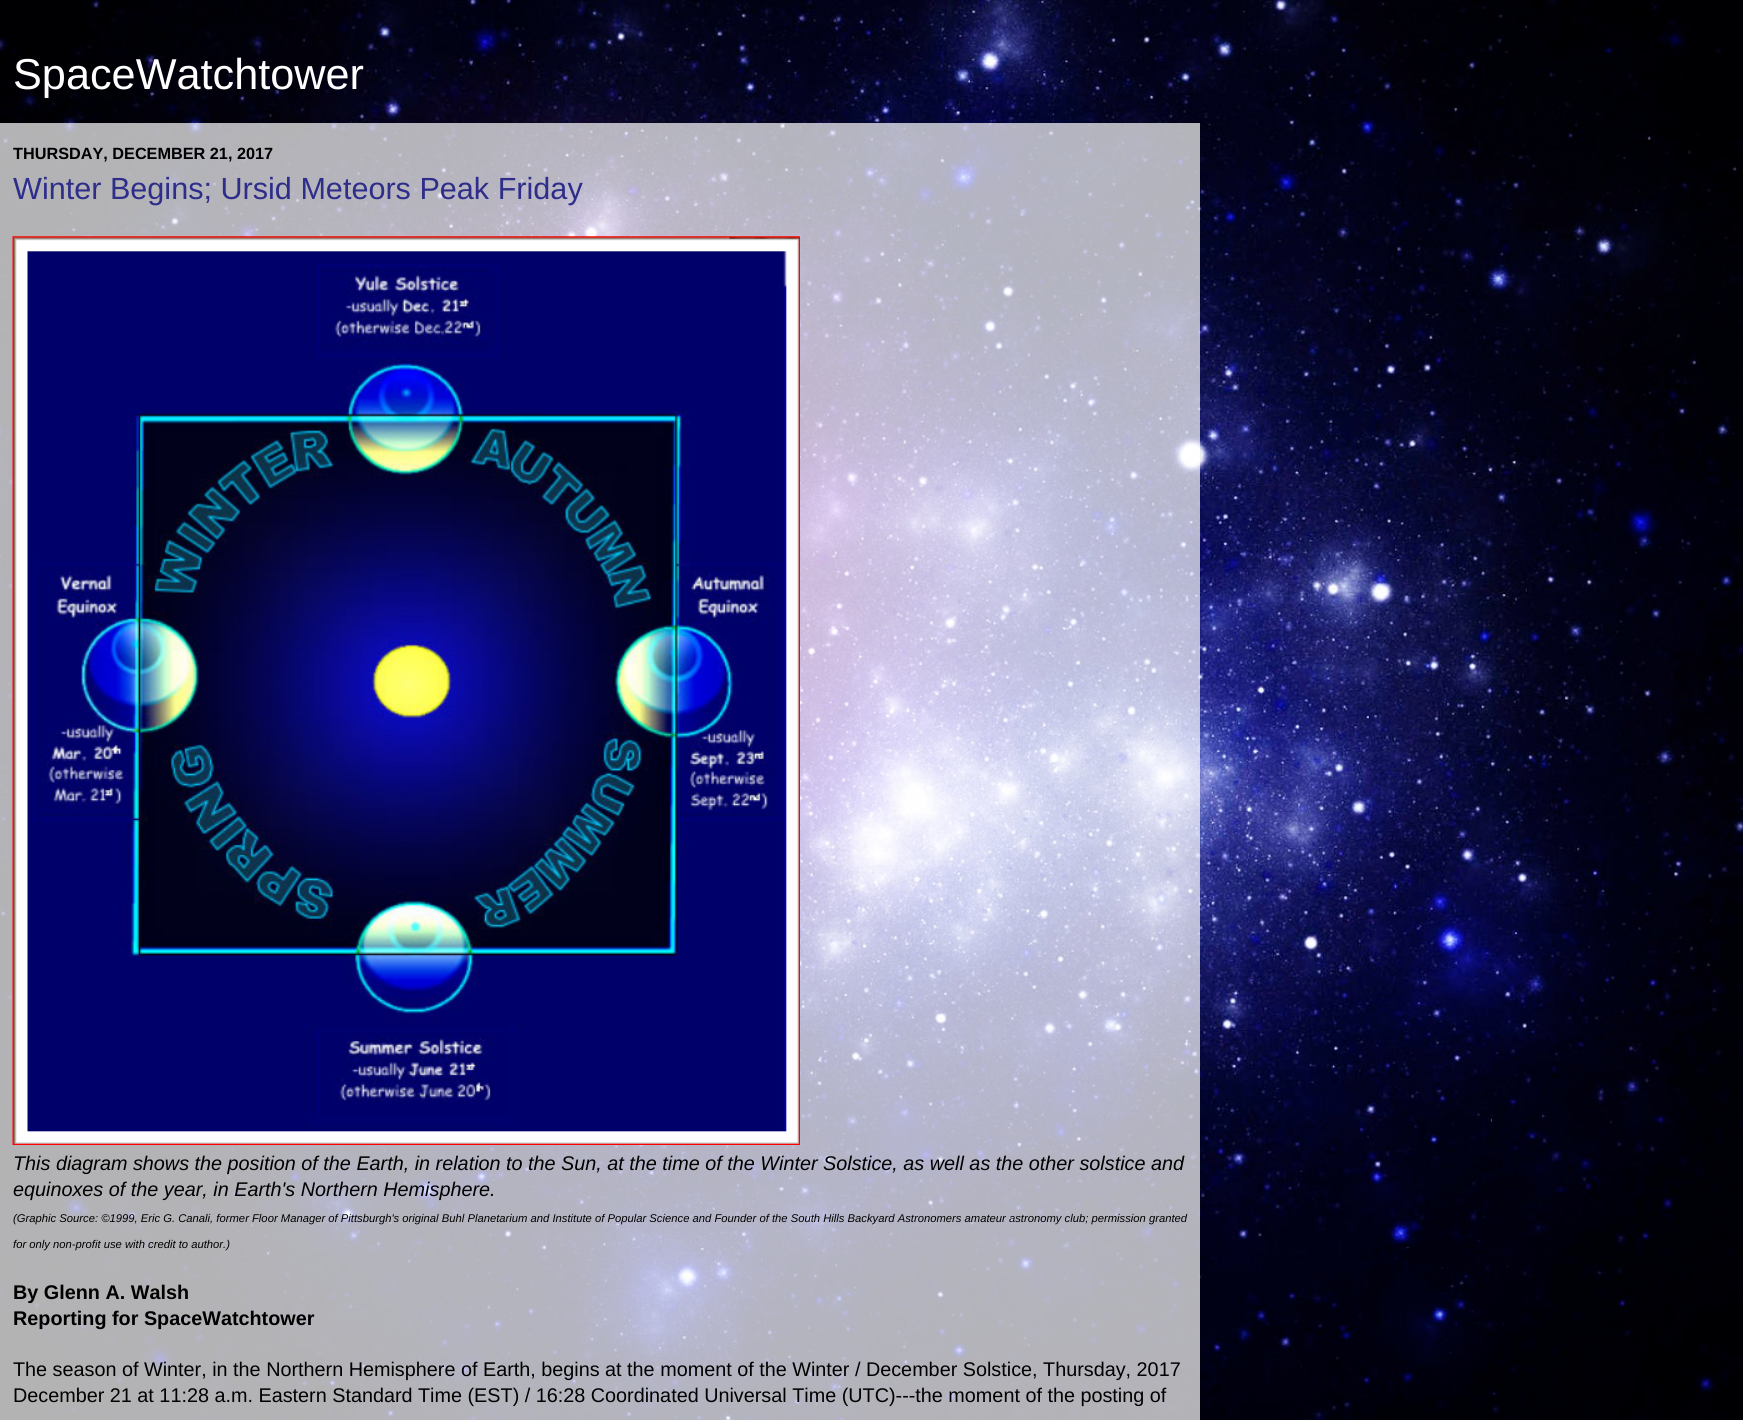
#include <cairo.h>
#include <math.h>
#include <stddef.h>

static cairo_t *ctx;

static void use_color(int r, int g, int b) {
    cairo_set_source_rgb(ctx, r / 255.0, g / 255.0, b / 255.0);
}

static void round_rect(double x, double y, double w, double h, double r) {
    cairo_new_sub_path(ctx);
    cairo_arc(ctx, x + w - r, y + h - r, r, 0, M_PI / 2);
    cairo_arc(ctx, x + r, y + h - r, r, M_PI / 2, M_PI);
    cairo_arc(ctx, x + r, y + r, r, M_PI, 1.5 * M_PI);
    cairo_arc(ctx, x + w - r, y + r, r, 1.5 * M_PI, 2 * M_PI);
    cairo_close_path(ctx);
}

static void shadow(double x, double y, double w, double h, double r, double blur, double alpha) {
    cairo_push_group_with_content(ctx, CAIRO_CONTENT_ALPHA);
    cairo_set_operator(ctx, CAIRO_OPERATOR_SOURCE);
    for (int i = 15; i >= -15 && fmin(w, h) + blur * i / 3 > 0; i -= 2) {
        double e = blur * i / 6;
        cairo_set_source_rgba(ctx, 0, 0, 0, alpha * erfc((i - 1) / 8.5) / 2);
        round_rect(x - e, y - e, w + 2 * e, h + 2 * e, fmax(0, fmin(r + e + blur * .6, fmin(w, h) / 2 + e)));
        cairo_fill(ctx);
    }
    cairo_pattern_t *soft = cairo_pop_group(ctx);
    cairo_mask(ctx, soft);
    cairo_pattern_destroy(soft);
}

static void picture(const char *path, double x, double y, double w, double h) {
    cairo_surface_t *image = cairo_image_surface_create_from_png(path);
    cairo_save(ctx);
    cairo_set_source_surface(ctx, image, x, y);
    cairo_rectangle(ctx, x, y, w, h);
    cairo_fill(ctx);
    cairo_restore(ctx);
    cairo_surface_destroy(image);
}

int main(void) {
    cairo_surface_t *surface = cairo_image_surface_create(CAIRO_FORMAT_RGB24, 1743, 1420);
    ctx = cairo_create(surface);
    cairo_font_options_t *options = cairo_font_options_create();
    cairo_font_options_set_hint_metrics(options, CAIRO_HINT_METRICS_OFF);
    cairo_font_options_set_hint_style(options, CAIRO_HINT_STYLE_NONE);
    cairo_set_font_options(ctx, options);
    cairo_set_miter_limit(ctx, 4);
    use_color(255, 255, 255);
    cairo_paint(ctx);
    picture("img1.png", 0, 0, 1743, 1420);
    cairo_select_font_face(ctx, "Liberation Sans", CAIRO_FONT_SLANT_NORMAL, CAIRO_FONT_WEIGHT_NORMAL);
    cairo_set_font_size(ctx, 43.25);
    use_color(255, 255, 255);
    cairo_move_to(ctx, 13, 89);
    cairo_show_text(ctx, "SpaceWatchtower");
    cairo_save(ctx);
    cairo_set_fill_rule(ctx, CAIRO_FILL_RULE_EVEN_ODD);
    cairo_new_path(ctx);
    cairo_move_to(ctx, 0, 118);
    cairo_line_to(ctx, 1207, 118);
    cairo_line_to(ctx, 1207, 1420);
    cairo_line_to(ctx, 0, 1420);
    cairo_close_path(ctx);
    cairo_move_to(ctx, 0, 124);
    cairo_line_to(ctx, 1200, 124);
    cairo_line_to(ctx, 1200, 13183);
    cairo_line_to(ctx, 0, 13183);
    cairo_close_path(ctx);
    cairo_clip(ctx);
    use_color(0, 0, 0);
    shadow(0, 125, 1200, 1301, 0, 2, 0.15);
    cairo_restore(ctx);
    cairo_set_source_rgba(ctx, 1, 1, 1, 0.7);
    cairo_rectangle(ctx, 0, 123, 1200, 1297);
    cairo_fill(ctx);
    cairo_select_font_face(ctx, "Liberation Sans", CAIRO_FONT_SLANT_NORMAL, CAIRO_FONT_WEIGHT_BOLD);
    cairo_set_font_size(ctx, 16.25);
    use_color(0, 0, 0);
    cairo_move_to(ctx, 13, 159);
    cairo_show_text(ctx, "THURSDAY, DECEMBER 21, 2017");
    cairo_select_font_face(ctx, "Liberation Sans", CAIRO_FONT_SLANT_NORMAL, CAIRO_FONT_WEIGHT_NORMAL);
    cairo_set_font_size(ctx, 30.6);
    use_color(46, 46, 138);
    cairo_move_to(ctx, 13, 199);
    cairo_show_text(ctx, "Winter Begins; Ursid Meteors Peak Friday");
    picture("img2.png", 12, 236, 788, 909);
    cairo_select_font_face(ctx, "Liberation Sans", CAIRO_FONT_SLANT_ITALIC, CAIRO_FONT_WEIGHT_NORMAL);
    cairo_set_font_size(ctx, 19.8);
    use_color(0, 0, 0);
    cairo_move_to(ctx, 13, 1170);
    cairo_show_text(ctx, "This diagram shows the position of the Earth, in relation to the Sun, at the time of the Winter Solstice, as well as the other solstice and");
    cairo_move_to(ctx, 13, 1196);
    cairo_show_text(ctx, "equinoxes of the year, in Earth's Northern Hemisphere.");
    cairo_set_font_size(ctx, 11.25);
    cairo_move_to(ctx, 13, 1222);
    cairo_show_text(ctx, "(Graphic Source: ©1999, Eric G. Canali, former Floor Manager of Pittsburgh's original Buhl Planetarium and Institute of Popular Science and Founder of the South Hills Backyard Astronomers amateur astronomy club; permission granted");
    cairo_move_to(ctx, 13, 1248);
    cairo_show_text(ctx, "for only non-profit use with credit to author.)");
    cairo_select_font_face(ctx, "Liberation Sans", CAIRO_FONT_SLANT_NORMAL, CAIRO_FONT_WEIGHT_BOLD);
    cairo_set_font_size(ctx, 19.8);
    cairo_move_to(ctx, 13, 1299);
    cairo_show_text(ctx, "By Glenn A. Walsh");
    cairo_move_to(ctx, 13, 1325);
    cairo_show_text(ctx, "Reporting for SpaceWatchtower");
    cairo_select_font_face(ctx, "Liberation Sans", CAIRO_FONT_SLANT_NORMAL, CAIRO_FONT_WEIGHT_NORMAL);
    cairo_move_to(ctx, 13, 1376);
    cairo_show_text(ctx, "The season of Winter, in the Northern Hemisphere of Earth, begins at the moment of the Winter / December Solstice, Thursday, 2017");
    cairo_move_to(ctx, 13, 1402);
    cairo_show_text(ctx, "December 21 at 11:28 a.m. Eastern Standard Time (EST) / 16:28 Coordinated Universal Time (UTC)---the moment of the posting of");
    cairo_surface_write_to_png(surface, "result.png");
    cairo_font_options_destroy(options);
    cairo_destroy(ctx);
    cairo_surface_destroy(surface);
    return 0;
}
